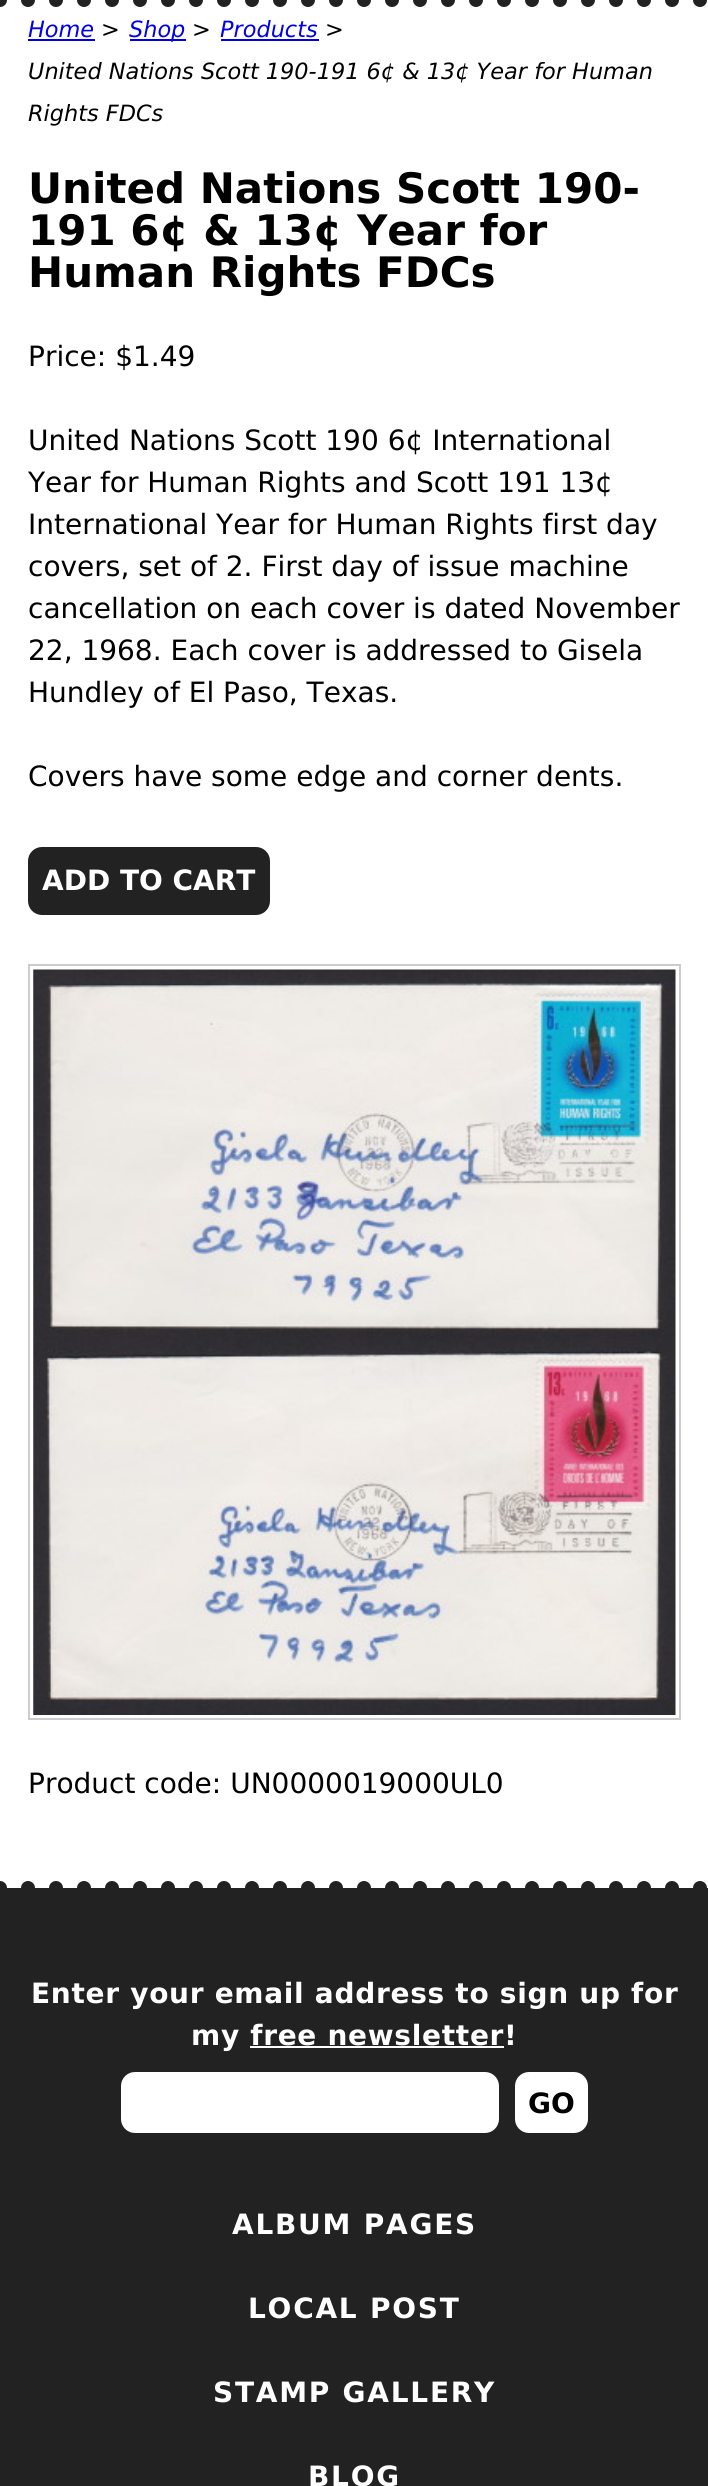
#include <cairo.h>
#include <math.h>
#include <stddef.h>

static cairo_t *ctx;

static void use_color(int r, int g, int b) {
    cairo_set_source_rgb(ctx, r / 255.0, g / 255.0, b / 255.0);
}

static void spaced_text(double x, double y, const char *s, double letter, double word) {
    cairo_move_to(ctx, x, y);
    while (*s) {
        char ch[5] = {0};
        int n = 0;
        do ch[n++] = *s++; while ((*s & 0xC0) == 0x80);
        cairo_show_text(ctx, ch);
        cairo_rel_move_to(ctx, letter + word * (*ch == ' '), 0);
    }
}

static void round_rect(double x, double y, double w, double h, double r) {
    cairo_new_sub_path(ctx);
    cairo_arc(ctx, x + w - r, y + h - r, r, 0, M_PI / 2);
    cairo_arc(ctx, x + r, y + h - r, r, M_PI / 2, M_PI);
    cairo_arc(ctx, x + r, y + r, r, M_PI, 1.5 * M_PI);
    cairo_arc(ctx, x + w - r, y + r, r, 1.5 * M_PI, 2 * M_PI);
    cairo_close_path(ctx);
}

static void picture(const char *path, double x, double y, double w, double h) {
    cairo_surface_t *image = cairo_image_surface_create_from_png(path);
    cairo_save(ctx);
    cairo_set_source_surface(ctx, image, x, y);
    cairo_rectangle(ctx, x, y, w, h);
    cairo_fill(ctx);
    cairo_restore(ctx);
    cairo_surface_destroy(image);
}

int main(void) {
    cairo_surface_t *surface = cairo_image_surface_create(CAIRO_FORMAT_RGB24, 708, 2486);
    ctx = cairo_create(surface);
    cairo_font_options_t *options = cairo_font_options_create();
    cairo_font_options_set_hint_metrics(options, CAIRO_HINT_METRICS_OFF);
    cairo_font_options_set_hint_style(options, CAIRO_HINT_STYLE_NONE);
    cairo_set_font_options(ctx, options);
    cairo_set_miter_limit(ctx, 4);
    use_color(255, 255, 255);
    cairo_paint(ctx);
    cairo_new_path(ctx);
    cairo_move_to(ctx, 0, 0);
    cairo_line_to(ctx, 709, 0);
    use_color(34, 34, 34);
    cairo_set_line_width(ctx, 14);
    cairo_set_line_cap(ctx, CAIRO_LINE_CAP_ROUND);
    cairo_set_dash(ctx, (double[]){0, 28}, 2, 0);
    cairo_stroke(ctx);
    cairo_new_path(ctx);
    cairo_move_to(ctx, 0, 1888);
    cairo_line_to(ctx, 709, 1888);
    cairo_stroke(ctx);
    cairo_select_font_face(ctx, "DejaVu Sans", CAIRO_FONT_SLANT_ITALIC, CAIRO_FONT_WEIGHT_NORMAL);
    cairo_set_font_size(ctx, 22.4);
    use_color(0, 0, 238);
    cairo_move_to(ctx, 28, 37);
    cairo_show_text(ctx, "Home");
    cairo_rectangle(ctx, 28, 39, 67, 2);
    cairo_fill(ctx);
    use_color(0, 0, 0);
    cairo_move_to(ctx, 101, 37);
    cairo_show_text(ctx, ">");
    use_color(0, 0, 238);
    cairo_rectangle(ctx, 130, 39, 56, 2);
    cairo_fill(ctx);
    cairo_move_to(ctx, 129, 37);
    cairo_show_text(ctx, "Shop");
    use_color(0, 0, 0);
    cairo_move_to(ctx, 192, 37);
    cairo_show_text(ctx, ">");
    use_color(0, 0, 238);
    cairo_move_to(ctx, 220, 37);
    cairo_show_text(ctx, "Products");
    cairo_rectangle(ctx, 221, 39, 98, 2);
    cairo_fill(ctx);
    use_color(0, 0, 0);
    cairo_move_to(ctx, 325, 37);
    cairo_show_text(ctx, ">");
    cairo_move_to(ctx, 28, 79);
    cairo_show_text(ctx, "United Nations Scott 190-191 6¢ & 13¢ Year for Human");
    cairo_move_to(ctx, 28, 121);
    cairo_show_text(ctx, "Rights FDCs");
    cairo_select_font_face(ctx, "DejaVu Sans", CAIRO_FONT_SLANT_NORMAL, CAIRO_FONT_WEIGHT_BOLD);
    cairo_set_font_size(ctx, 42);
    cairo_move_to(ctx, 28, 203);
    cairo_show_text(ctx, "United Nations Scott 190-");
    cairo_move_to(ctx, 28, 245);
    cairo_show_text(ctx, "191 6¢ & 13¢ Year for");
    cairo_move_to(ctx, 28, 287);
    cairo_show_text(ctx, "Human Rights FDCs");
    cairo_select_font_face(ctx, "DejaVu Sans", CAIRO_FONT_SLANT_NORMAL, CAIRO_FONT_WEIGHT_NORMAL);
    cairo_set_font_size(ctx, 28);
    cairo_move_to(ctx, 28, 366);
    cairo_show_text(ctx, "Price: $1.49");
    cairo_move_to(ctx, 28, 450);
    cairo_show_text(ctx, "United Nations Scott 190 6¢ International");
    cairo_move_to(ctx, 28, 492);
    cairo_show_text(ctx, "Year for Human Rights and Scott 191 13¢");
    cairo_move_to(ctx, 28, 534);
    cairo_show_text(ctx, "International Year for Human Rights first day");
    cairo_move_to(ctx, 28, 576);
    cairo_show_text(ctx, "covers, set of 2. First day of issue machine");
    cairo_move_to(ctx, 28, 618);
    cairo_show_text(ctx, "cancellation on each cover is dated November");
    cairo_move_to(ctx, 28, 660);
    cairo_show_text(ctx, "22, 1968. Each cover is addressed to Gisela");
    cairo_move_to(ctx, 28, 702);
    cairo_show_text(ctx, "Hundley of El Paso, Texas.");
    cairo_move_to(ctx, 28, 786);
    cairo_show_text(ctx, "Covers have some edge and corner dents.");
    use_color(34, 34, 34);
    round_rect(28, 847, 242, 68, 14);
    cairo_fill(ctx);
    cairo_select_font_face(ctx, "DejaVu Sans", CAIRO_FONT_SLANT_NORMAL, CAIRO_FONT_WEIGHT_BOLD);
    use_color(255, 255, 255);
    cairo_move_to(ctx, 42, 890);
    cairo_show_text(ctx, "ADD TO CART");
    cairo_rectangle(ctx, 29, 965, 651, 754);
    use_color(204, 204, 204);
    cairo_set_line_width(ctx, 2);
    cairo_set_line_cap(ctx, CAIRO_LINE_CAP_BUTT);
    cairo_set_dash(ctx, NULL, 0, 0);
    cairo_stroke(ctx);
    picture("img1.png", 33, 969, 643, 746);
    cairo_select_font_face(ctx, "DejaVu Sans", CAIRO_FONT_SLANT_NORMAL, CAIRO_FONT_WEIGHT_NORMAL);
    use_color(0, 0, 0);
    cairo_move_to(ctx, 28, 1793);
    cairo_show_text(ctx, "Product code: UN0000019000UL0");
    use_color(34, 34, 34);
    cairo_rectangle(ctx, 0, 1888, 708, 598);
    cairo_fill(ctx);
    cairo_select_font_face(ctx, "DejaVu Sans", CAIRO_FONT_SLANT_NORMAL, CAIRO_FONT_WEIGHT_BOLD);
    use_color(255, 255, 255);
    spaced_text(31, 2003, "Enter your email address to sign up for", 0.7, 0);
    spaced_text(191, 2045, "my free newsletter!", 0.7, 0);
    cairo_rectangle(ctx, 250, 2046, 254, 2);
    cairo_fill(ctx);
    round_rect(121, 2072, 378, 61, 14);
    cairo_fill(ctx);
    round_rect(515, 2072, 73, 61, 14);
    cairo_fill(ctx);
    use_color(0, 0, 0);
    cairo_move_to(ctx, 528, 2113);
    cairo_show_text(ctx, "GO");
    use_color(255, 255, 255);
    spaced_text(232, 2234, "ALBUM PAGES", 1.75, 0);
    spaced_text(248, 2318, "LOCAL POST", 1.75, 0);
    spaced_text(213, 2402, "STAMP GALLERY", 1.75, 0);
    spaced_text(308, 2486, "BLOG", 1.75, 0);
    cairo_surface_write_to_png(surface, "result.png");
    cairo_font_options_destroy(options);
    cairo_destroy(ctx);
    cairo_surface_destroy(surface);
    return 0;
}
